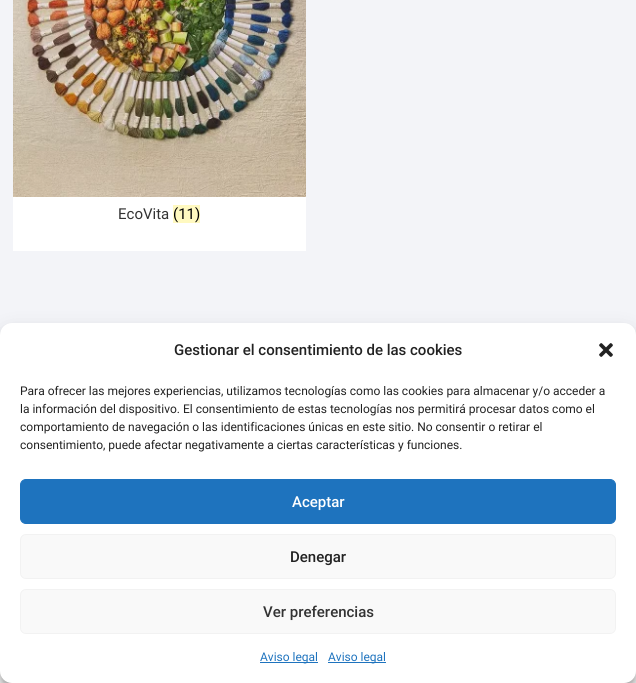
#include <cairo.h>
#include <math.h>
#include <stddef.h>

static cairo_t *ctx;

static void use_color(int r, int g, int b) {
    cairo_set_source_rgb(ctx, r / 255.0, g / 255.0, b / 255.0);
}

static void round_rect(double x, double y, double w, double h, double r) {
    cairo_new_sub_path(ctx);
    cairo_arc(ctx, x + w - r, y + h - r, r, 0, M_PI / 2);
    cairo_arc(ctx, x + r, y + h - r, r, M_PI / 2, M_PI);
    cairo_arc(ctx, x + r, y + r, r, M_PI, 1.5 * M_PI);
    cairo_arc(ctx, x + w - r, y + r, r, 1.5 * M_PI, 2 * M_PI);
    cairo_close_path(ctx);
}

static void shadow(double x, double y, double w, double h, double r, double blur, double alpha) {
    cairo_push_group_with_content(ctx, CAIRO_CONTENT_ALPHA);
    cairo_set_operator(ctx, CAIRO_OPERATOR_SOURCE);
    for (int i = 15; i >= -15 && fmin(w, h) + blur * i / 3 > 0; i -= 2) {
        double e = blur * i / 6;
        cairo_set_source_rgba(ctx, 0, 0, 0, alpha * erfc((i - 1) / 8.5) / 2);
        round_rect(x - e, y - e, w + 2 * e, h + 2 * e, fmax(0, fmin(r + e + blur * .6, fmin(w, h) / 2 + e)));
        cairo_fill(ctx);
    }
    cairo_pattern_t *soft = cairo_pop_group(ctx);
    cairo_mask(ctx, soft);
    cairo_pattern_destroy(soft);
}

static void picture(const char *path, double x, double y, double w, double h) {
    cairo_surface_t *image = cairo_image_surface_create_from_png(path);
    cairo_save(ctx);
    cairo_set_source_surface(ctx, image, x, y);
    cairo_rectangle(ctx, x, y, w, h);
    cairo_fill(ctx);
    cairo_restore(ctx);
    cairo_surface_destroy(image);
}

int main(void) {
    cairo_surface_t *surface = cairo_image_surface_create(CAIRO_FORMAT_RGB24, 636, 683);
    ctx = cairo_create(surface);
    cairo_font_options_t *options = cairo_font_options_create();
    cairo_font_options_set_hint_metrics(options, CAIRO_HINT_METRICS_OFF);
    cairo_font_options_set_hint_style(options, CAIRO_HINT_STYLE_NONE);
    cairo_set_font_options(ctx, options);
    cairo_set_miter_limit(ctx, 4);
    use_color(243, 244, 248);
    cairo_paint(ctx);
    use_color(255, 255, 255);
    cairo_rectangle(ctx, 13, 197, 293, 54);
    cairo_fill(ctx);
    picture("img1.png", 13, 0, 293, 197);
    cairo_select_font_face(ctx, "Roboto", CAIRO_FONT_SLANT_NORMAL, CAIRO_FONT_WEIGHT_NORMAL);
    cairo_set_font_size(ctx, 15);
    use_color(51, 51, 51);
    cairo_move_to(ctx, 118, 219);
    cairo_show_text(ctx, "EcoVita");
    use_color(255, 249, 192);
    cairo_rectangle(ctx, 173, 205, 27, 18);
    cairo_fill(ctx);
    use_color(0, 0, 0);
    cairo_move_to(ctx, 173, 219);
    cairo_show_text(ctx, "(11)");
    use_color(255, 255, 255);
    cairo_rectangle(ctx, 0, 671, 636, 12);
    cairo_fill(ctx);
    use_color(0, 0, 0);
    shadow(0, 329, 636, 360, 12, 3, 0.23);
    shadow(0, 333, 636, 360, 12, 10, 0.19);
    use_color(255, 255, 255);
    round_rect(0, 323, 636, 360, 12);
    cairo_fill(ctx);
    cairo_select_font_face(ctx, "Roboto Medium", CAIRO_FONT_SLANT_NORMAL, CAIRO_FONT_WEIGHT_NORMAL);
    use_color(34, 34, 34);
    cairo_move_to(ctx, 174, 355);
    cairo_show_text(ctx, "Gestionar el consentimiento de las cookies");
    picture("img2.png", 599, 343, 14, 14);
    cairo_select_font_face(ctx, "Roboto", CAIRO_FONT_SLANT_NORMAL, CAIRO_FONT_WEIGHT_NORMAL);
    cairo_set_font_size(ctx, 12);
    cairo_move_to(ctx, 20, 395);
    cairo_show_text(ctx, "Para ofrecer las mejores experiencias, utilizamos tecnologías como las cookies para almacenar y/o acceder a");
    cairo_move_to(ctx, 20, 413);
    cairo_show_text(ctx, "la información del dispositivo. El consentimiento de estas tecnologías nos permitirá procesar datos como el");
    cairo_move_to(ctx, 20, 431);
    cairo_show_text(ctx, "comportamiento de navegación o las identificaciones únicas en este sitio. No consentir o retirar el");
    cairo_move_to(ctx, 20, 449);
    cairo_show_text(ctx, "consentimiento, puede afectar negativamente a ciertas características y funciones.");
    use_color(30, 115, 190);
    round_rect(20.5, 479.5, 595, 44, 5.5);
    cairo_fill_preserve(ctx);
    cairo_set_line_width(ctx, 1);
    cairo_stroke(ctx);
    cairo_select_font_face(ctx, "Roboto Medium", CAIRO_FONT_SLANT_NORMAL, CAIRO_FONT_WEIGHT_NORMAL);
    cairo_set_font_size(ctx, 15);
    use_color(255, 255, 255);
    cairo_move_to(ctx, 292, 507);
    cairo_show_text(ctx, "Aceptar");
    use_color(249, 249, 249);
    round_rect(20.5, 534.5, 595, 44, 5.5);
    cairo_fill_preserve(ctx);
    use_color(242, 242, 242);
    cairo_stroke(ctx);
    use_color(34, 34, 34);
    cairo_move_to(ctx, 290, 562);
    cairo_show_text(ctx, "Denegar");
    use_color(249, 249, 249);
    round_rect(20.5, 589.5, 595, 44, 5.5);
    cairo_fill_preserve(ctx);
    use_color(242, 242, 242);
    cairo_stroke(ctx);
    use_color(51, 51, 51);
    cairo_move_to(ctx, 263, 617);
    cairo_show_text(ctx, "Ver preferencias");
    use_color(30, 115, 190);
    cairo_rectangle(ctx, 260, 662, 58, 1);
    cairo_fill(ctx);
    cairo_select_font_face(ctx, "Roboto", CAIRO_FONT_SLANT_NORMAL, CAIRO_FONT_WEIGHT_NORMAL);
    cairo_set_font_size(ctx, 12);
    cairo_move_to(ctx, 260, 661);
    cairo_show_text(ctx, "Aviso legal");
    cairo_rectangle(ctx, 328, 662, 58, 1);
    cairo_fill(ctx);
    cairo_move_to(ctx, 328, 661);
    cairo_show_text(ctx, "Aviso legal");
    cairo_surface_write_to_png(surface, "result.png");
    cairo_font_options_destroy(options);
    cairo_destroy(ctx);
    cairo_surface_destroy(surface);
    return 0;
}
